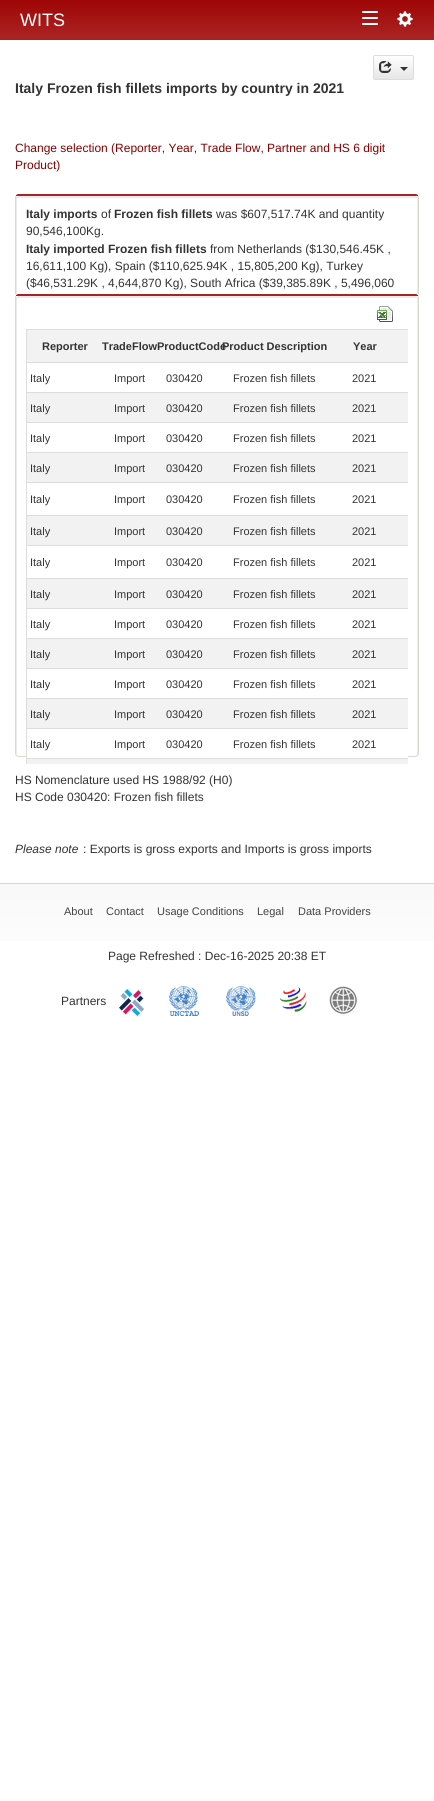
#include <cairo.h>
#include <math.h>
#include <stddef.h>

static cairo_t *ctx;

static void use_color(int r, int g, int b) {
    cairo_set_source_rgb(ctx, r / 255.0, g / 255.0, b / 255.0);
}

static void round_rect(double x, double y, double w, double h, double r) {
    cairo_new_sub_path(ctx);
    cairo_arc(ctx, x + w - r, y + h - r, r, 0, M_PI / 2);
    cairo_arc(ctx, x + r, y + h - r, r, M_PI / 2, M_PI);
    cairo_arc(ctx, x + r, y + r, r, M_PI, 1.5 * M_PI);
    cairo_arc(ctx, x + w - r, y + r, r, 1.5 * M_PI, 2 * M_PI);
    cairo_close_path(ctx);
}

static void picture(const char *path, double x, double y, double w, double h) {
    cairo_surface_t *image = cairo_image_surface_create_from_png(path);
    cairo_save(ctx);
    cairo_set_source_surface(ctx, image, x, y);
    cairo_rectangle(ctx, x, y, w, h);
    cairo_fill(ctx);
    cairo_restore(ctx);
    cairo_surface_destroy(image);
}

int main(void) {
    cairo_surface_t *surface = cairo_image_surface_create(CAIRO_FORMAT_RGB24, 434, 1801);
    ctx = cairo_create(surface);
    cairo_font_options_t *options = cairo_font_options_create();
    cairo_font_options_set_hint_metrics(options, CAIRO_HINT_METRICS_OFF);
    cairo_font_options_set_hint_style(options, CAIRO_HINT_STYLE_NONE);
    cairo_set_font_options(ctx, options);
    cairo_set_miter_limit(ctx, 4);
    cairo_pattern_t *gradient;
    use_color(255, 255, 255);
    cairo_paint(ctx);
    gradient = cairo_pattern_create_linear(217, 0, 217, 36);
    cairo_pattern_add_color_stop_rgba(gradient, 0, 0.62, 0.02, 0.02, 1);
    cairo_pattern_add_color_stop_rgba(gradient, 1, 0.667, 0.133, 0.133, 1);
    cairo_set_source(ctx, gradient);
    cairo_pattern_destroy(gradient);
    cairo_rectangle(ctx, 0, 0, 434, 36);
    cairo_fill(ctx);
    use_color(170, 34, 34);
    cairo_rectangle(ctx, 0, 36, 434, 4);
    cairo_fill(ctx);
    cairo_select_font_face(ctx, "Liberation Sans", CAIRO_FONT_SLANT_NORMAL, CAIRO_FONT_WEIGHT_NORMAL);
    cairo_set_font_size(ctx, 18);
    use_color(255, 255, 255);
    cairo_move_to(ctx, 20, 26);
    cairo_show_text(ctx, "WITS");
    round_rect(362, 11, 16, 2, 1);
    cairo_fill(ctx);
    round_rect(362, 17, 16, 2, 1);
    cairo_fill(ctx);
    round_rect(362, 23, 16, 2, 1);
    cairo_fill(ctx);
    picture("img1.png", 397, 11, 16, 16);
    cairo_save(ctx);
    round_rect(373, 55, 41, 25, 2);
    cairo_clip(ctx);
    gradient = cairo_pattern_create_linear(394, 56, 394, 79);
    cairo_pattern_add_color_stop_rgba(gradient, 0, 1, 1, 1, 1);
    cairo_pattern_add_color_stop_rgba(gradient, 1, 0.902, 0.902, 0.902, 1);
    cairo_set_source(ctx, gradient);
    cairo_pattern_destroy(gradient);
    cairo_rectangle(ctx, 373, 56, 41, 23);
    cairo_fill(ctx);
    cairo_restore(ctx);
    round_rect(373.5, 55.5, 40, 24, 1.5);
    use_color(221, 221, 221);
    cairo_set_line_width(ctx, 1);
    cairo_stroke(ctx);
    picture("img2.png", 379, 61, 13, 12);
    use_color(51, 51, 51);
    cairo_new_path(ctx);
    cairo_move_to(ctx, 400, 67);
    cairo_line_to(ctx, 408, 67);
    cairo_line_to(ctx, 404, 71);
    cairo_close_path(ctx);
    cairo_fill(ctx);
    cairo_select_font_face(ctx, "Liberation Sans", CAIRO_FONT_SLANT_NORMAL, CAIRO_FONT_WEIGHT_BOLD);
    cairo_set_font_size(ctx, 14);
    cairo_move_to(ctx, 15, 93);
    cairo_show_text(ctx, "Italy Frozen fish fillets imports by country in 2021");
    cairo_select_font_face(ctx, "Liberation Sans", CAIRO_FONT_SLANT_NORMAL, CAIRO_FONT_WEIGHT_NORMAL);
    cairo_set_font_size(ctx, 12);
    use_color(133, 0, 0);
    cairo_move_to(ctx, 15, 152);
    cairo_show_text(ctx, "Change selection (Reporter, Year, Trade Flow, Partner and HS 6 digit");
    cairo_move_to(ctx, 15, 169);
    cairo_show_text(ctx, "Product)");
    use_color(235, 235, 235);
    cairo_new_path(ctx);
    cairo_move_to(ctx, 18, 196);
    cairo_curve_to(ctx, 17, 196, 16, 196, 16, 197);
    cairo_line_to(ctx, 16, 341);
    cairo_curve_to(ctx, 16, 342, 16, 342, 17, 343);
    cairo_line_to(ctx, 17, 198);
    cairo_line_to(ctx, 417, 198);
    cairo_line_to(ctx, 417, 343);
    cairo_curve_to(ctx, 418, 342, 418, 342, 418, 341);
    cairo_line_to(ctx, 418, 197);
    cairo_curve_to(ctx, 418, 196, 417, 196, 416, 196);
    cairo_close_path(ctx);
    cairo_fill(ctx);
    use_color(170, 34, 34);
    cairo_new_path(ctx);
    cairo_move_to(ctx, 18, 194);
    cairo_line_to(ctx, 16, 195);
    cairo_line_to(ctx, 16, 196);
    cairo_line_to(ctx, 18, 196);
    cairo_line_to(ctx, 416, 196);
    cairo_line_to(ctx, 418, 196);
    cairo_line_to(ctx, 418, 195);
    cairo_line_to(ctx, 416, 194);
    cairo_close_path(ctx);
    cairo_fill(ctx);
    use_color(215, 220, 207);
    cairo_new_path(ctx);
    cairo_move_to(ctx, 419, 341);
    cairo_line_to(ctx, 419, 197);
    cairo_line_to(ctx, 418, 195);
    cairo_line_to(ctx, 418, 196);
    cairo_line_to(ctx, 418, 341);
    cairo_line_to(ctx, 417, 342);
    cairo_line_to(ctx, 418, 343);
    cairo_close_path(ctx);
    cairo_fill(ctx);
    cairo_new_path(ctx);
    cairo_move_to(ctx, 15, 197);
    cairo_line_to(ctx, 15, 341);
    cairo_line_to(ctx, 16, 343);
    cairo_line_to(ctx, 17, 342);
    cairo_line_to(ctx, 16, 341);
    cairo_line_to(ctx, 16, 196);
    cairo_line_to(ctx, 16, 195);
    cairo_close_path(ctx);
    cairo_fill(ctx);
    cairo_select_font_face(ctx, "Liberation Sans", CAIRO_FONT_SLANT_NORMAL, CAIRO_FONT_WEIGHT_BOLD);
    use_color(51, 51, 51);
    cairo_move_to(ctx, 26, 218);
    cairo_show_text(ctx, "Italy imports");
    cairo_select_font_face(ctx, "Liberation Sans", CAIRO_FONT_SLANT_NORMAL, CAIRO_FONT_WEIGHT_NORMAL);
    cairo_move_to(ctx, 101, 218);
    cairo_show_text(ctx, "of");
    cairo_select_font_face(ctx, "Liberation Sans", CAIRO_FONT_SLANT_NORMAL, CAIRO_FONT_WEIGHT_BOLD);
    cairo_move_to(ctx, 114, 218);
    cairo_show_text(ctx, "Frozen fish fillets");
    cairo_select_font_face(ctx, "Liberation Sans", CAIRO_FONT_SLANT_NORMAL, CAIRO_FONT_WEIGHT_NORMAL);
    cairo_move_to(ctx, 216, 218);
    cairo_show_text(ctx, "was $607,517.74K and quantity");
    cairo_move_to(ctx, 26, 235);
    cairo_show_text(ctx, "90,546,100Kg.");
    cairo_select_font_face(ctx, "Liberation Sans", CAIRO_FONT_SLANT_NORMAL, CAIRO_FONT_WEIGHT_BOLD);
    cairo_move_to(ctx, 26, 253);
    cairo_show_text(ctx, "Italy imported Frozen fish fillets");
    cairo_select_font_face(ctx, "Liberation Sans", CAIRO_FONT_SLANT_NORMAL, CAIRO_FONT_WEIGHT_NORMAL);
    cairo_move_to(ctx, 210, 253);
    cairo_show_text(ctx, "from Netherlands ($130,546.45K ,");
    cairo_move_to(ctx, 26, 270);
    cairo_show_text(ctx, "16,611,100 Kg), Spain ($110,625.94K , 15,805,200 Kg), Turkey");
    cairo_move_to(ctx, 26, 287);
    cairo_show_text(ctx, "($46,531.29K , 4,644,870 Kg), South Africa ($39,385.89K , 5,496,060");
    use_color(255, 255, 255);
    cairo_rectangle(ctx, 15, 294, 404, 49);
    cairo_fill(ctx);
    use_color(235, 235, 235);
    cairo_new_path(ctx);
    cairo_move_to(ctx, 18, 296);
    cairo_line_to(ctx, 16, 297);
    cairo_line_to(ctx, 16, 754);
    cairo_line_to(ctx, 17, 756);
    cairo_line_to(ctx, 17, 298);
    cairo_line_to(ctx, 417, 298);
    cairo_line_to(ctx, 417, 756);
    cairo_line_to(ctx, 418, 754);
    cairo_line_to(ctx, 418, 297);
    cairo_line_to(ctx, 416, 296);
    cairo_close_path(ctx);
    cairo_fill(ctx);
    use_color(170, 34, 34);
    cairo_new_path(ctx);
    cairo_move_to(ctx, 18, 294);
    cairo_line_to(ctx, 16, 295);
    cairo_line_to(ctx, 16, 296);
    cairo_line_to(ctx, 18, 296);
    cairo_line_to(ctx, 416, 296);
    cairo_line_to(ctx, 418, 296);
    cairo_line_to(ctx, 418, 295);
    cairo_line_to(ctx, 416, 294);
    cairo_close_path(ctx);
    cairo_fill(ctx);
    use_color(215, 220, 207);
    cairo_new_path(ctx);
    cairo_move_to(ctx, 419, 754);
    cairo_line_to(ctx, 419, 297);
    cairo_line_to(ctx, 418, 295);
    cairo_line_to(ctx, 418, 296);
    cairo_line_to(ctx, 418, 754);
    cairo_line_to(ctx, 417, 755);
    cairo_line_to(ctx, 418, 756);
    cairo_close_path(ctx);
    cairo_fill(ctx);
    cairo_new_path(ctx);
    cairo_move_to(ctx, 18, 757);
    cairo_line_to(ctx, 416, 757);
    cairo_line_to(ctx, 418, 756);
    cairo_line_to(ctx, 417, 755);
    cairo_line_to(ctx, 416, 756);
    cairo_line_to(ctx, 18, 756);
    cairo_line_to(ctx, 17, 755);
    cairo_line_to(ctx, 16, 756);
    cairo_close_path(ctx);
    cairo_fill(ctx);
    cairo_new_path(ctx);
    cairo_move_to(ctx, 15, 297);
    cairo_line_to(ctx, 15, 754);
    cairo_line_to(ctx, 16, 756);
    cairo_line_to(ctx, 17, 755);
    cairo_line_to(ctx, 16, 754);
    cairo_line_to(ctx, 16, 296);
    cairo_line_to(ctx, 16, 295);
    cairo_close_path(ctx);
    cairo_fill(ctx);
    picture("img3.png", 377, 306, 16, 16);
    use_color(51, 51, 51);
    cairo_move_to(ctx, 15, 784);
    cairo_show_text(ctx, "HS Nomenclature used HS 1988/92 (H0)");
    cairo_move_to(ctx, 15, 801);
    cairo_show_text(ctx, "HS Code 030420: Frozen fish fillets");
    cairo_select_font_face(ctx, "Liberation Sans", CAIRO_FONT_SLANT_ITALIC, CAIRO_FONT_WEIGHT_NORMAL);
    cairo_move_to(ctx, 15, 853);
    cairo_show_text(ctx, "Please note");
    gradient = cairo_pattern_create_linear(217, 884, 217, 973);
    cairo_pattern_add_color_stop_rgba(gradient, 0, 0.973, 0.973, 0.973, 1);
    cairo_pattern_add_color_stop_rgba(gradient, 1, 1, 1, 1, 1);
    cairo_set_source(ctx, gradient);
    cairo_pattern_destroy(gradient);
    cairo_rectangle(ctx, 0, 884, 434, 57);
    cairo_fill(ctx);
    use_color(212, 212, 212);
    cairo_rectangle(ctx, 0, 883, 434, 1);
    cairo_fill(ctx);
    picture("img4.png", 119, 988, 25, 29);
    picture("img5.png", 169, 986, 30, 30);
    picture("img6.png", 226, 986, 30, 30);
    picture("img7.png", 280, 987, 27, 25);
    picture("img8.png", 329, 986, 29, 29);
    cairo_save(ctx);
    cairo_rectangle(ctx, 26, 329, 382, 435);
    cairo_clip(ctx);
    cairo_rectangle(ctx, 26.5, 329.5, 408, 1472);
    use_color(221, 221, 221);
    cairo_stroke(ctx);
    cairo_restore(ctx);
    use_color(242, 242, 242);
    cairo_rectangle(ctx, 27, 330, 381, 32);
    cairo_fill(ctx);
    use_color(221, 221, 221);
    cairo_rectangle(ctx, 27, 362, 381, 1);
    cairo_fill(ctx);
    cairo_select_font_face(ctx, "Liberation Sans", CAIRO_FONT_SLANT_NORMAL, CAIRO_FONT_WEIGHT_BOLD);
    cairo_set_font_size(ctx, 11);
    use_color(51, 51, 51);
    cairo_move_to(ctx, 42, 350);
    cairo_show_text(ctx, "Reporter");
    cairo_move_to(ctx, 102, 350);
    cairo_show_text(ctx, "TradeFlowProductCode");
    cairo_move_to(ctx, 222, 350);
    cairo_show_text(ctx, "Product Description");
    cairo_move_to(ctx, 353, 350);
    cairo_show_text(ctx, "Year");
    use_color(221, 221, 221);
    cairo_rectangle(ctx, 27, 392, 381, 1);
    cairo_fill(ctx);
    cairo_select_font_face(ctx, "Liberation Sans", CAIRO_FONT_SLANT_NORMAL, CAIRO_FONT_WEIGHT_NORMAL);
    use_color(51, 51, 51);
    cairo_move_to(ctx, 30, 382);
    cairo_show_text(ctx, "Italy");
    cairo_move_to(ctx, 114, 382);
    cairo_show_text(ctx, "Import");
    cairo_move_to(ctx, 166, 382);
    cairo_show_text(ctx, "030420");
    cairo_move_to(ctx, 233, 382);
    cairo_show_text(ctx, "Frozen fish fillets");
    cairo_move_to(ctx, 352, 382);
    cairo_show_text(ctx, "2021");
    use_color(242, 242, 242);
    cairo_rectangle(ctx, 27, 393, 381, 29);
    cairo_fill(ctx);
    use_color(221, 221, 221);
    cairo_rectangle(ctx, 27, 422, 381, 1);
    cairo_fill(ctx);
    use_color(51, 51, 51);
    cairo_move_to(ctx, 30, 412);
    cairo_show_text(ctx, "Italy");
    cairo_move_to(ctx, 114, 412);
    cairo_show_text(ctx, "Import");
    cairo_move_to(ctx, 166, 412);
    cairo_show_text(ctx, "030420");
    cairo_move_to(ctx, 233, 412);
    cairo_show_text(ctx, "Frozen fish fillets");
    cairo_move_to(ctx, 352, 412);
    cairo_show_text(ctx, "2021");
    use_color(221, 221, 221);
    cairo_rectangle(ctx, 27, 452, 381, 1);
    cairo_fill(ctx);
    use_color(51, 51, 51);
    cairo_move_to(ctx, 30, 442);
    cairo_show_text(ctx, "Italy");
    cairo_move_to(ctx, 114, 442);
    cairo_show_text(ctx, "Import");
    cairo_move_to(ctx, 166, 442);
    cairo_show_text(ctx, "030420");
    cairo_move_to(ctx, 233, 442);
    cairo_show_text(ctx, "Frozen fish fillets");
    cairo_move_to(ctx, 352, 442);
    cairo_show_text(ctx, "2021");
    use_color(242, 242, 242);
    cairo_rectangle(ctx, 27, 453, 381, 29);
    cairo_fill(ctx);
    use_color(221, 221, 221);
    cairo_rectangle(ctx, 27, 482, 381, 1);
    cairo_fill(ctx);
    use_color(51, 51, 51);
    cairo_move_to(ctx, 30, 472);
    cairo_show_text(ctx, "Italy");
    cairo_move_to(ctx, 114, 472);
    cairo_show_text(ctx, "Import");
    cairo_move_to(ctx, 166, 472);
    cairo_show_text(ctx, "030420");
    cairo_move_to(ctx, 233, 472);
    cairo_show_text(ctx, "Frozen fish fillets");
    cairo_move_to(ctx, 352, 472);
    cairo_show_text(ctx, "2021");
    use_color(221, 221, 221);
    cairo_rectangle(ctx, 27, 515, 381, 1);
    cairo_fill(ctx);
    use_color(51, 51, 51);
    cairo_move_to(ctx, 30, 503);
    cairo_show_text(ctx, "Italy");
    cairo_move_to(ctx, 114, 503);
    cairo_show_text(ctx, "Import");
    cairo_move_to(ctx, 166, 503);
    cairo_show_text(ctx, "030420");
    cairo_move_to(ctx, 233, 503);
    cairo_show_text(ctx, "Frozen fish fillets");
    cairo_move_to(ctx, 352, 503);
    cairo_show_text(ctx, "2021");
    use_color(242, 242, 242);
    cairo_rectangle(ctx, 27, 516, 381, 29);
    cairo_fill(ctx);
    use_color(221, 221, 221);
    cairo_rectangle(ctx, 27, 545, 381, 1);
    cairo_fill(ctx);
    use_color(51, 51, 51);
    cairo_move_to(ctx, 30, 535);
    cairo_show_text(ctx, "Italy");
    cairo_move_to(ctx, 114, 535);
    cairo_show_text(ctx, "Import");
    cairo_move_to(ctx, 166, 535);
    cairo_show_text(ctx, "030420");
    cairo_move_to(ctx, 233, 535);
    cairo_show_text(ctx, "Frozen fish fillets");
    cairo_move_to(ctx, 352, 535);
    cairo_show_text(ctx, "2021");
    use_color(221, 221, 221);
    cairo_rectangle(ctx, 27, 578, 381, 1);
    cairo_fill(ctx);
    use_color(51, 51, 51);
    cairo_move_to(ctx, 30, 566);
    cairo_show_text(ctx, "Italy");
    cairo_move_to(ctx, 114, 566);
    cairo_show_text(ctx, "Import");
    cairo_move_to(ctx, 166, 566);
    cairo_show_text(ctx, "030420");
    cairo_move_to(ctx, 233, 566);
    cairo_show_text(ctx, "Frozen fish fillets");
    cairo_move_to(ctx, 352, 566);
    cairo_show_text(ctx, "2021");
    use_color(242, 242, 242);
    cairo_rectangle(ctx, 27, 579, 381, 29);
    cairo_fill(ctx);
    use_color(221, 221, 221);
    cairo_rectangle(ctx, 27, 608, 381, 1);
    cairo_fill(ctx);
    use_color(51, 51, 51);
    cairo_move_to(ctx, 30, 598);
    cairo_show_text(ctx, "Italy");
    cairo_move_to(ctx, 114, 598);
    cairo_show_text(ctx, "Import");
    cairo_move_to(ctx, 166, 598);
    cairo_show_text(ctx, "030420");
    cairo_move_to(ctx, 233, 598);
    cairo_show_text(ctx, "Frozen fish fillets");
    cairo_move_to(ctx, 352, 598);
    cairo_show_text(ctx, "2021");
    use_color(221, 221, 221);
    cairo_rectangle(ctx, 27, 638, 381, 1);
    cairo_fill(ctx);
    use_color(51, 51, 51);
    cairo_move_to(ctx, 30, 628);
    cairo_show_text(ctx, "Italy");
    cairo_move_to(ctx, 114, 628);
    cairo_show_text(ctx, "Import");
    cairo_move_to(ctx, 166, 628);
    cairo_show_text(ctx, "030420");
    cairo_move_to(ctx, 233, 628);
    cairo_show_text(ctx, "Frozen fish fillets");
    cairo_move_to(ctx, 352, 628);
    cairo_show_text(ctx, "2021");
    use_color(242, 242, 242);
    cairo_rectangle(ctx, 27, 639, 381, 29);
    cairo_fill(ctx);
    use_color(221, 221, 221);
    cairo_rectangle(ctx, 27, 668, 381, 1);
    cairo_fill(ctx);
    use_color(51, 51, 51);
    cairo_move_to(ctx, 30, 658);
    cairo_show_text(ctx, "Italy");
    cairo_move_to(ctx, 114, 658);
    cairo_show_text(ctx, "Import");
    cairo_move_to(ctx, 166, 658);
    cairo_show_text(ctx, "030420");
    cairo_move_to(ctx, 233, 658);
    cairo_show_text(ctx, "Frozen fish fillets");
    cairo_move_to(ctx, 352, 658);
    cairo_show_text(ctx, "2021");
    use_color(221, 221, 221);
    cairo_rectangle(ctx, 27, 698, 381, 1);
    cairo_fill(ctx);
    use_color(51, 51, 51);
    cairo_move_to(ctx, 30, 688);
    cairo_show_text(ctx, "Italy");
    cairo_move_to(ctx, 114, 688);
    cairo_show_text(ctx, "Import");
    cairo_move_to(ctx, 166, 688);
    cairo_show_text(ctx, "030420");
    cairo_move_to(ctx, 233, 688);
    cairo_show_text(ctx, "Frozen fish fillets");
    cairo_move_to(ctx, 352, 688);
    cairo_show_text(ctx, "2021");
    use_color(242, 242, 242);
    cairo_rectangle(ctx, 27, 699, 381, 29);
    cairo_fill(ctx);
    use_color(221, 221, 221);
    cairo_rectangle(ctx, 27, 728, 381, 1);
    cairo_fill(ctx);
    use_color(51, 51, 51);
    cairo_move_to(ctx, 30, 718);
    cairo_show_text(ctx, "Italy");
    cairo_move_to(ctx, 114, 718);
    cairo_show_text(ctx, "Import");
    cairo_move_to(ctx, 166, 718);
    cairo_show_text(ctx, "030420");
    cairo_move_to(ctx, 233, 718);
    cairo_show_text(ctx, "Frozen fish fillets");
    cairo_move_to(ctx, 352, 718);
    cairo_show_text(ctx, "2021");
    use_color(255, 255, 255);
    cairo_rectangle(ctx, 27, 756, 381, 1);
    cairo_fill(ctx);
    use_color(221, 221, 221);
    cairo_rectangle(ctx, 27, 758, 381, 1);
    cairo_fill(ctx);
    use_color(51, 51, 51);
    cairo_move_to(ctx, 30, 748);
    cairo_show_text(ctx, "Italy");
    cairo_move_to(ctx, 114, 748);
    cairo_show_text(ctx, "Import");
    cairo_move_to(ctx, 166, 748);
    cairo_show_text(ctx, "030420");
    cairo_move_to(ctx, 233, 748);
    cairo_show_text(ctx, "Frozen fish fillets");
    cairo_move_to(ctx, 352, 748);
    cairo_show_text(ctx, "2021");
    use_color(242, 242, 242);
    cairo_rectangle(ctx, 27, 759, 381, 5);
    cairo_fill(ctx);
    cairo_set_font_size(ctx, 12);
    use_color(51, 51, 51);
    cairo_move_to(ctx, 83, 853);
    cairo_show_text(ctx, ": Exports is gross exports and Imports is gross imports");
    cairo_set_font_size(ctx, 11);
    use_color(68, 68, 68);
    cairo_move_to(ctx, 64, 915);
    cairo_show_text(ctx, "About");
    cairo_move_to(ctx, 106, 915);
    cairo_show_text(ctx, "Contact");
    cairo_move_to(ctx, 157, 915);
    cairo_show_text(ctx, "Usage Conditions");
    cairo_move_to(ctx, 257, 915);
    cairo_show_text(ctx, "Legal");
    cairo_move_to(ctx, 298, 915);
    cairo_show_text(ctx, "Data Providers");
    cairo_set_font_size(ctx, 12);
    use_color(51, 51, 51);
    cairo_move_to(ctx, 108, 960);
    cairo_show_text(ctx, "Page Refreshed : Dec-16-2025 20:38 ET");
    cairo_move_to(ctx, 61, 1005);
    cairo_show_text(ctx, "Partners");
    cairo_surface_write_to_png(surface, "result.png");
    cairo_font_options_destroy(options);
    cairo_destroy(ctx);
    cairo_surface_destroy(surface);
    return 0;
}
